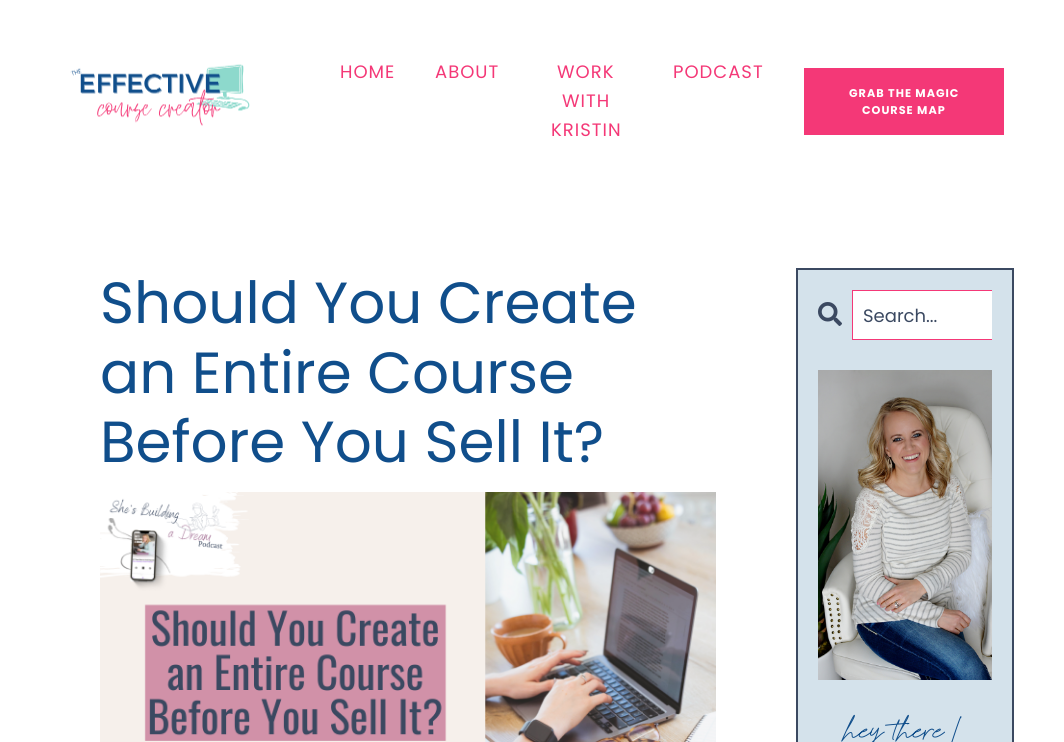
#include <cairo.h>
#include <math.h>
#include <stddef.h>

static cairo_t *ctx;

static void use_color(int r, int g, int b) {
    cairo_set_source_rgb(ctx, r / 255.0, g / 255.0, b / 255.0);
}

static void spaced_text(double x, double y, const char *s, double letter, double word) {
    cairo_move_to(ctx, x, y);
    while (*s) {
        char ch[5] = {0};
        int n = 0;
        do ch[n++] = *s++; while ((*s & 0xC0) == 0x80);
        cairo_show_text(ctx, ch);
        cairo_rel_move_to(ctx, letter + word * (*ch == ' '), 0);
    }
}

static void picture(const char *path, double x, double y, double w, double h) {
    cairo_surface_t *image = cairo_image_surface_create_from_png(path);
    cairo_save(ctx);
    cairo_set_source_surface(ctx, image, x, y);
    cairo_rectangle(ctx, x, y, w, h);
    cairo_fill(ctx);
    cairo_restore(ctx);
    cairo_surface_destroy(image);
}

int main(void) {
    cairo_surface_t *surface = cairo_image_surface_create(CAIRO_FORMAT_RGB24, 1064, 742);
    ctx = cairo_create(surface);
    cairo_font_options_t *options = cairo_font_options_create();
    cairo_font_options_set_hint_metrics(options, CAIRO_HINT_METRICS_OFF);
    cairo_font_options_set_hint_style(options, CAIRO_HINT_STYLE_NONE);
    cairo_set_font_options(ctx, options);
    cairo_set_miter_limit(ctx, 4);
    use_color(255, 255, 255);
    cairo_paint(ctx);
    picture("img1.png", 70, 64, 180, 62);
    cairo_select_font_face(ctx, "Poppins", CAIRO_FONT_SLANT_NORMAL, CAIRO_FONT_WEIGHT_NORMAL);
    cairo_set_font_size(ctx, 18);
    use_color(244, 56, 119);
    spaced_text(340, 78, "HOME", 1, 0);
    spaced_text(435, 78, "ABOUT", 1, 0);
    spaced_text(557, 78, "WORK", 1, 0);
    spaced_text(562, 107, "WITH", 1, 0);
    spaced_text(551, 136, "KRISTIN", 1, 0);
    spaced_text(673, 78, "PODCAST", 1, 0);
    cairo_rectangle(ctx, 804, 68, 200, 67);
    cairo_fill(ctx);
    cairo_select_font_face(ctx, "Poppins", CAIRO_FONT_SLANT_NORMAL, CAIRO_FONT_WEIGHT_BOLD);
    cairo_set_font_size(ctx, 11.25);
    use_color(255, 255, 255);
    spaced_text(849, 97, "GRAB THE MAGIC", 1, 0);
    spaced_text(862, 114, "COURSE MAP", 1, 0);
    cairo_select_font_face(ctx, "Poppins", CAIRO_FONT_SLANT_NORMAL, CAIRO_FONT_WEIGHT_NORMAL);
    cairo_set_font_size(ctx, 58);
    use_color(16, 78, 139);
    cairo_move_to(ctx, 100, 323);
    cairo_show_text(ctx, "Should You Create");
    cairo_move_to(ctx, 100, 393);
    cairo_show_text(ctx, "an Entire Course");
    cairo_move_to(ctx, 100, 462);
    cairo_show_text(ctx, "Before You Sell It?");
    picture("img2.png", 100, 492, 616, 250);
    use_color(212, 226, 235);
    cairo_rectangle(ctx, 797, 269, 216, 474);
    cairo_fill_preserve(ctx);
    use_color(59, 73, 97);
    cairo_stroke(ctx);
    picture("img3.png", 818, 302, 24, 24);
    use_color(255, 255, 255);
    cairo_rectangle(ctx, 853, 291, 139, 48);
    cairo_fill(ctx);
    use_color(244, 56, 119);
    cairo_rectangle(ctx, 852, 290, 140, 1);
    cairo_fill(ctx);
    cairo_rectangle(ctx, 852, 339, 140, 1);
    cairo_fill(ctx);
    cairo_rectangle(ctx, 852, 290, 1, 50);
    cairo_fill(ctx);
    cairo_set_font_size(ctx, 18);
    use_color(59, 73, 97);
    cairo_move_to(ctx, 863, 322);
    cairo_show_text(ctx, "Search...");
    picture("img4.png", 818, 370, 174, 310);
    cairo_select_font_face(ctx, "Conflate", CAIRO_FONT_SLANT_NORMAL, CAIRO_FONT_WEIGHT_NORMAL);
    cairo_set_font_size(ctx, 48);
    use_color(16, 78, 139);
    cairo_move_to(ctx, 846, 746);
    cairo_show_text(ctx, "hey there!");
    cairo_surface_write_to_png(surface, "result.png");
    cairo_font_options_destroy(options);
    cairo_destroy(ctx);
    cairo_surface_destroy(surface);
    return 0;
}
